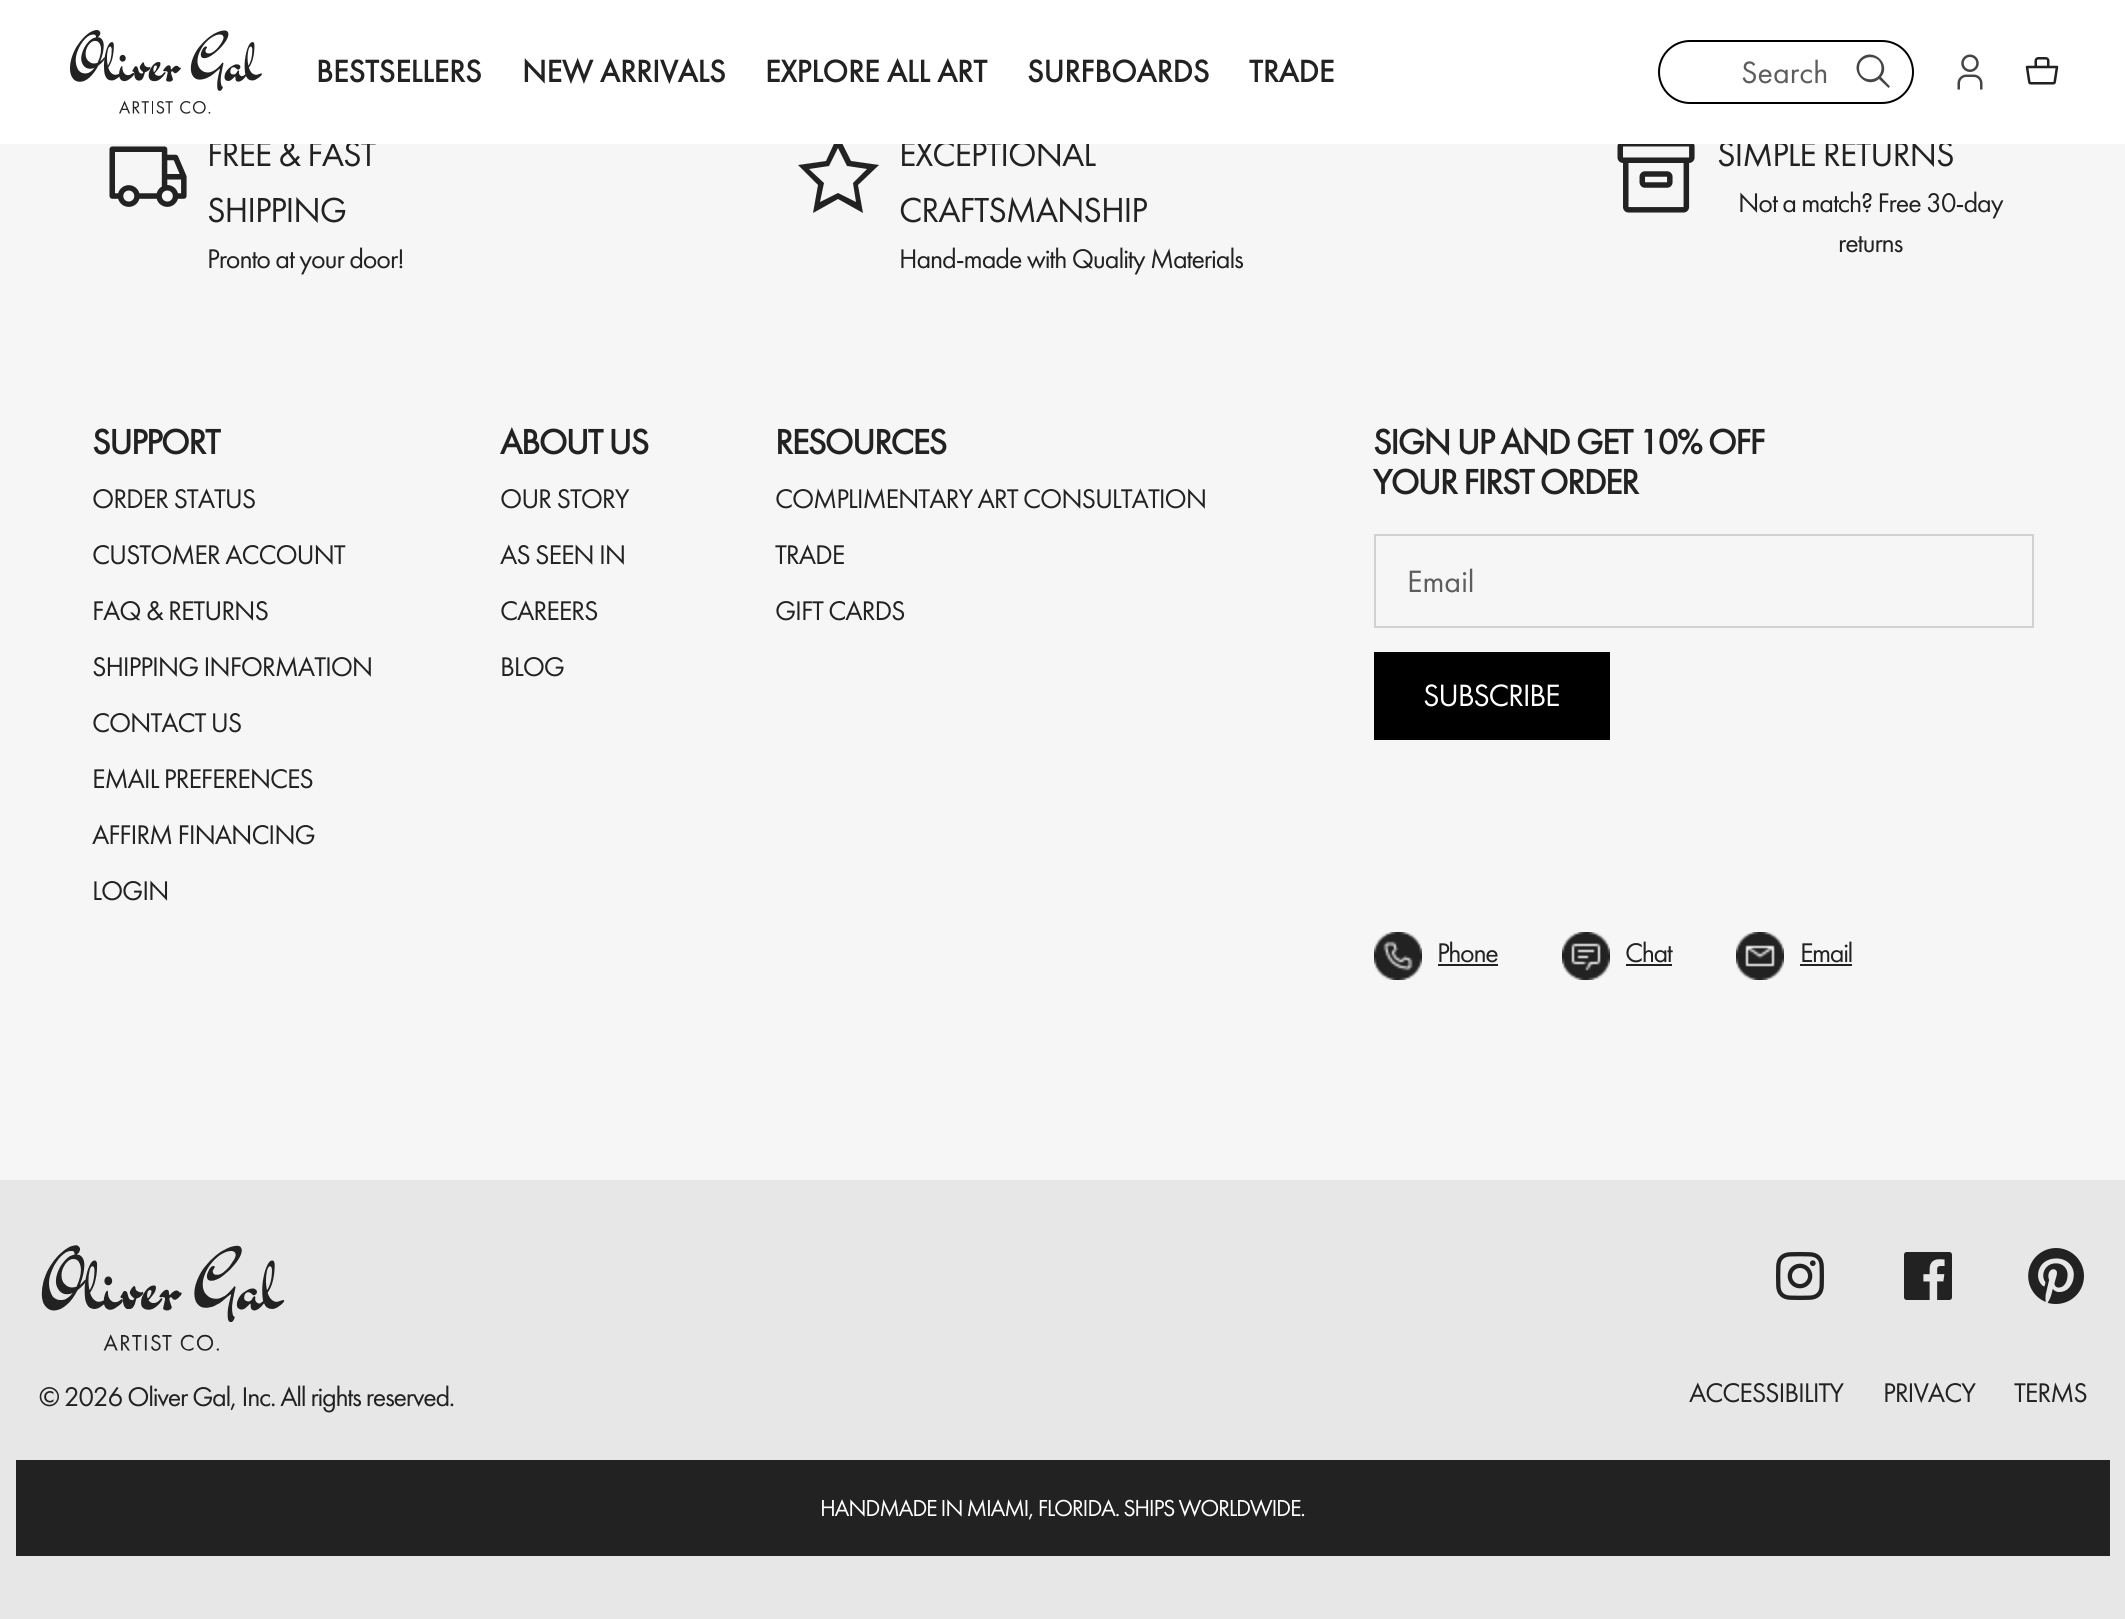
#include <cairo.h>
#include <math.h>
#include <stddef.h>

static cairo_t *ctx;

static void use_color(int r, int g, int b) {
    cairo_set_source_rgb(ctx, r / 255.0, g / 255.0, b / 255.0);
}

static void spaced_text(double x, double y, const char *s, double letter, double word) {
    cairo_move_to(ctx, x, y);
    while (*s) {
        char ch[5] = {0};
        int n = 0;
        do ch[n++] = *s++; while ((*s & 0xC0) == 0x80);
        cairo_show_text(ctx, ch);
        cairo_rel_move_to(ctx, letter + word * (*ch == ' '), 0);
    }
}

static void round_rect(double x, double y, double w, double h, double r) {
    cairo_new_sub_path(ctx);
    cairo_arc(ctx, x + w - r, y + h - r, r, 0, M_PI / 2);
    cairo_arc(ctx, x + r, y + h - r, r, M_PI / 2, M_PI);
    cairo_arc(ctx, x + r, y + r, r, M_PI, 1.5 * M_PI);
    cairo_arc(ctx, x + w - r, y + r, r, 1.5 * M_PI, 2 * M_PI);
    cairo_close_path(ctx);
}

static void picture(const char *path, double x, double y, double w, double h) {
    cairo_surface_t *image = cairo_image_surface_create_from_png(path);
    cairo_save(ctx);
    cairo_set_source_surface(ctx, image, x, y);
    cairo_rectangle(ctx, x, y, w, h);
    cairo_fill(ctx);
    cairo_restore(ctx);
    cairo_surface_destroy(image);
}

int main(void) {
    cairo_surface_t *surface = cairo_image_surface_create(CAIRO_FORMAT_RGB24, 2125, 1619);
    ctx = cairo_create(surface);
    cairo_font_options_t *options = cairo_font_options_create();
    cairo_font_options_set_hint_metrics(options, CAIRO_HINT_METRICS_OFF);
    cairo_font_options_set_hint_style(options, CAIRO_HINT_STYLE_NONE);
    cairo_set_font_options(ctx, options);
    cairo_set_miter_limit(ctx, 4);
    use_color(246, 246, 246);
    cairo_paint(ctx);
    cairo_select_font_face(ctx, "Futura PT", CAIRO_FONT_SLANT_NORMAL, CAIRO_FONT_WEIGHT_NORMAL);
    cairo_set_font_size(ctx, 36);
    use_color(34, 34, 34);
    spaced_text(207, 166, "FREE & FAST", -1.1, 0);
    cairo_new_path(ctx);
    cairo_move_to(ctx, 838, 148);
    cairo_line_to(ctx, 847, 166);
    cairo_line_to(ctx, 867, 169);
    cairo_line_to(ctx, 853, 183);
    cairo_line_to(ctx, 856, 202);
    cairo_line_to(ctx, 838, 193);
    cairo_line_to(ctx, 820, 202);
    cairo_line_to(ctx, 824, 183);
    cairo_line_to(ctx, 809, 169);
    cairo_line_to(ctx, 829, 166);
    cairo_close_path(ctx);
    cairo_move_to(ctx, 838, 135);
    cairo_line_to(ctx, 826, 161);
    cairo_line_to(ctx, 798, 165);
    cairo_line_to(ctx, 818, 185);
    cairo_line_to(ctx, 813, 213);
    cairo_line_to(ctx, 838, 199);
    cairo_line_to(ctx, 863, 213);
    cairo_line_to(ctx, 858, 185);
    cairo_line_to(ctx, 879, 165);
    cairo_line_to(ctx, 851, 161);
    cairo_close_path(ctx);
    cairo_fill(ctx);
    spaced_text(899, 166, "EXCEPTIONAL", -1.1, 0);
    spaced_text(1717, 166, "SIMPLE RETURNS", -1.1, 0);
    use_color(255, 255, 255);
    cairo_rectangle(ctx, 0, 0, 2125, 144);
    cairo_fill(ctx);
    picture("img1.png", 70, 30, 192, 84);
    cairo_select_font_face(ctx, "Futura PT", CAIRO_FONT_SLANT_NORMAL, CAIRO_FONT_WEIGHT_BOLD);
    cairo_set_font_size(ctx, 32);
    use_color(34, 34, 34);
    cairo_move_to(ctx, 316, 82);
    cairo_show_text(ctx, "BESTSELLERS");
    cairo_move_to(ctx, 522, 82);
    cairo_show_text(ctx, "NEW ARRIVALS");
    cairo_move_to(ctx, 765, 82);
    cairo_show_text(ctx, "EXPLORE ALL ART");
    cairo_move_to(ctx, 1027, 82);
    cairo_show_text(ctx, "SURFBOARDS");
    cairo_move_to(ctx, 1249, 82);
    cairo_show_text(ctx, "TRADE");
    round_rect(1659, 41, 254, 62, 31);
    use_color(0, 0, 0);
    cairo_stroke(ctx);
    cairo_select_font_face(ctx, "Futura PT", CAIRO_FONT_SLANT_NORMAL, CAIRO_FONT_WEIGHT_NORMAL);
    use_color(93, 93, 93);
    cairo_move_to(ctx, 1741, 83);
    cairo_show_text(ctx, "Search");
    use_color(69, 69, 69);
    cairo_new_path(ctx);
    cairo_move_to(ctx, 1890, 86.5);
    cairo_line_to(ctx, 1881, 77);
    cairo_curve_to(ctx, 1892, 64, 1872.5, 46.5, 1860.5, 58.5);
    cairo_curve_to(ctx, 1848.5, 70.5, 1866, 90, 1879, 79);
    cairo_line_to(ctx, 1888.5, 88);
    cairo_close_path(ctx);
    cairo_move_to(ctx, 1859, 68);
    cairo_curve_to(ctx, 1859, 53.5, 1882, 53.5, 1881.5, 68.5);
    cairo_curve_to(ctx, 1881, 83, 1859, 83, 1859, 68);
    cairo_close_path(ctx);
    cairo_fill(ctx);
    picture("img2.png", 1957, 54, 26, 36);
    picture("img3.png", 2025, 57, 34, 28);
    picture("img4.png", 109, 146, 78, 61);
    cairo_set_font_size(ctx, 36);
    use_color(34, 34, 34);
    spaced_text(207, 222, "SHIPPING", -1.1, 0);
    cairo_set_font_size(ctx, 28);
    spaced_text(207, 268, "Pronto at your door!", -1.1, 0);
    cairo_set_font_size(ctx, 36);
    spaced_text(899, 222, "CRAFTSMANSHIP", -1.1, 0);
    cairo_set_font_size(ctx, 28);
    spaced_text(899, 268, "Hand-made with Quality Materials", -1.1, 0);
    picture("img5.png", 1617, 144, 78, 69);
    spaced_text(1738, 212, "Not a match? Free 30-day", -1.1, 0);
    spaced_text(1838, 252, "returns", -1.1, 0);
    cairo_select_font_face(ctx, "Futura PT", CAIRO_FONT_SLANT_NORMAL, CAIRO_FONT_WEIGHT_BOLD);
    cairo_set_font_size(ctx, 36);
    spaced_text(92, 454, "SUPPORT", -1.4, 0);
    cairo_select_font_face(ctx, "Futura PT", CAIRO_FONT_SLANT_NORMAL, CAIRO_FONT_WEIGHT_NORMAL);
    cairo_set_font_size(ctx, 28);
    spaced_text(92, 508, "ORDER STATUS", -1.1, 0);
    spaced_text(92, 564, "CUSTOMER ACCOUNT", -1.1, 0);
    spaced_text(92, 620, "FAQ & RETURNS", -1.1, 0);
    spaced_text(92, 676, "SHIPPING INFORMATION", -1.1, 0);
    spaced_text(92, 732, "CONTACT US", -1.1, 0);
    spaced_text(92, 788, "EMAIL PREFERENCES", -1.1, 0);
    spaced_text(92, 844, "AFFIRM FINANCING", -1.1, 0);
    spaced_text(92, 900, "LOGIN", -1.1, 0);
    cairo_select_font_face(ctx, "Futura PT", CAIRO_FONT_SLANT_NORMAL, CAIRO_FONT_WEIGHT_BOLD);
    cairo_set_font_size(ctx, 36);
    spaced_text(500, 454, "ABOUT US", -1.4, 0);
    cairo_select_font_face(ctx, "Futura PT", CAIRO_FONT_SLANT_NORMAL, CAIRO_FONT_WEIGHT_NORMAL);
    cairo_set_font_size(ctx, 28);
    spaced_text(500, 508, "OUR STORY", -1.1, 0);
    spaced_text(500, 564, "AS SEEN IN", -1.1, 0);
    spaced_text(500, 620, "CAREERS", -1.1, 0);
    spaced_text(500, 676, "BLOG", -1.1, 0);
    cairo_select_font_face(ctx, "Futura PT", CAIRO_FONT_SLANT_NORMAL, CAIRO_FONT_WEIGHT_BOLD);
    cairo_set_font_size(ctx, 36);
    spaced_text(775, 454, "RESOURCES", -1.4, 0);
    cairo_select_font_face(ctx, "Futura PT", CAIRO_FONT_SLANT_NORMAL, CAIRO_FONT_WEIGHT_NORMAL);
    cairo_set_font_size(ctx, 28);
    spaced_text(775, 508, "COMPLIMENTARY ART CONSULTATION", -1.1, 0);
    spaced_text(775, 564, "TRADE", -1.1, 0);
    spaced_text(775, 620, "GIFT CARDS", -1.1, 0);
    cairo_select_font_face(ctx, "Futura PT", CAIRO_FONT_SLANT_NORMAL, CAIRO_FONT_WEIGHT_BOLD);
    cairo_set_font_size(ctx, 36);
    spaced_text(1373, 454, "SIGN UP AND GET 10% OFF", -1.4, 0);
    spaced_text(1373, 494, "YOUR FIRST ORDER", -1.4, 0);
    cairo_rectangle(ctx, 1375, 535, 658, 92);
    use_color(209, 209, 209);
    cairo_stroke(ctx);
    cairo_select_font_face(ctx, "Futura PT", CAIRO_FONT_SLANT_NORMAL, CAIRO_FONT_WEIGHT_NORMAL);
    cairo_set_font_size(ctx, 32);
    use_color(93, 93, 93);
    cairo_move_to(ctx, 1407, 592);
    cairo_show_text(ctx, "Email");
    use_color(0, 0, 0);
    cairo_rectangle(ctx, 1374, 652, 236, 88);
    cairo_fill(ctx);
    use_color(255, 255, 255);
    spaced_text(1423, 706, "SUBSCRIBE", -1.3, 0);
    picture("img6.png", 1374, 932, 48, 48);
    cairo_set_font_size(ctx, 28);
    use_color(34, 34, 34);
    spaced_text(1437, 962, "Phone", -1.4, 0);
    cairo_rectangle(ctx, 1438, 964, 60, 2);
    cairo_fill(ctx);
    picture("img7.png", 1562, 932, 48, 48);
    spaced_text(1625, 962, "Chat", -1.4, 0);
    cairo_rectangle(ctx, 1626, 964, 46, 2);
    cairo_fill(ctx);
    picture("img8.png", 1736, 932, 48, 48);
    spaced_text(1800, 962, "Email", -1.4, 0);
    cairo_rectangle(ctx, 1800, 964, 52, 2);
    cairo_fill(ctx);
    use_color(231, 231, 231);
    cairo_rectangle(ctx, 0, 1180, 2125, 439);
    cairo_fill(ctx);
    picture("img9.png", 41, 1245, 244, 106);
    use_color(34, 34, 34);
    spaced_text(39, 1406, "© 2026 Oliver Gal, Inc. All rights reserved.", -1.3, 0);
    picture("img10.png", 1776, 1252, 48, 48);
    picture("img11.png", 1904, 1252, 48, 48);
    picture("img12.png", 2028, 1248, 56, 56);
    spaced_text(1689, 1402, "ACCESSIBILITY", -1.1, 0);
    spaced_text(1883, 1402, "PRIVACY", -1.1, 0);
    spaced_text(2014, 1402, "TERMS", -1.1, 0);
    cairo_rectangle(ctx, 16, 1460, 2094, 96);
    cairo_fill(ctx);
    cairo_set_font_size(ctx, 24);
    use_color(255, 255, 255);
    spaced_text(820, 1516, "HANDMADE IN MIAMI, FLORIDA. SHIPS WORLDWIDE.", -1.3, 0);
    cairo_surface_write_to_png(surface, "result.png");
    cairo_font_options_destroy(options);
    cairo_destroy(ctx);
    cairo_surface_destroy(surface);
    return 0;
}
